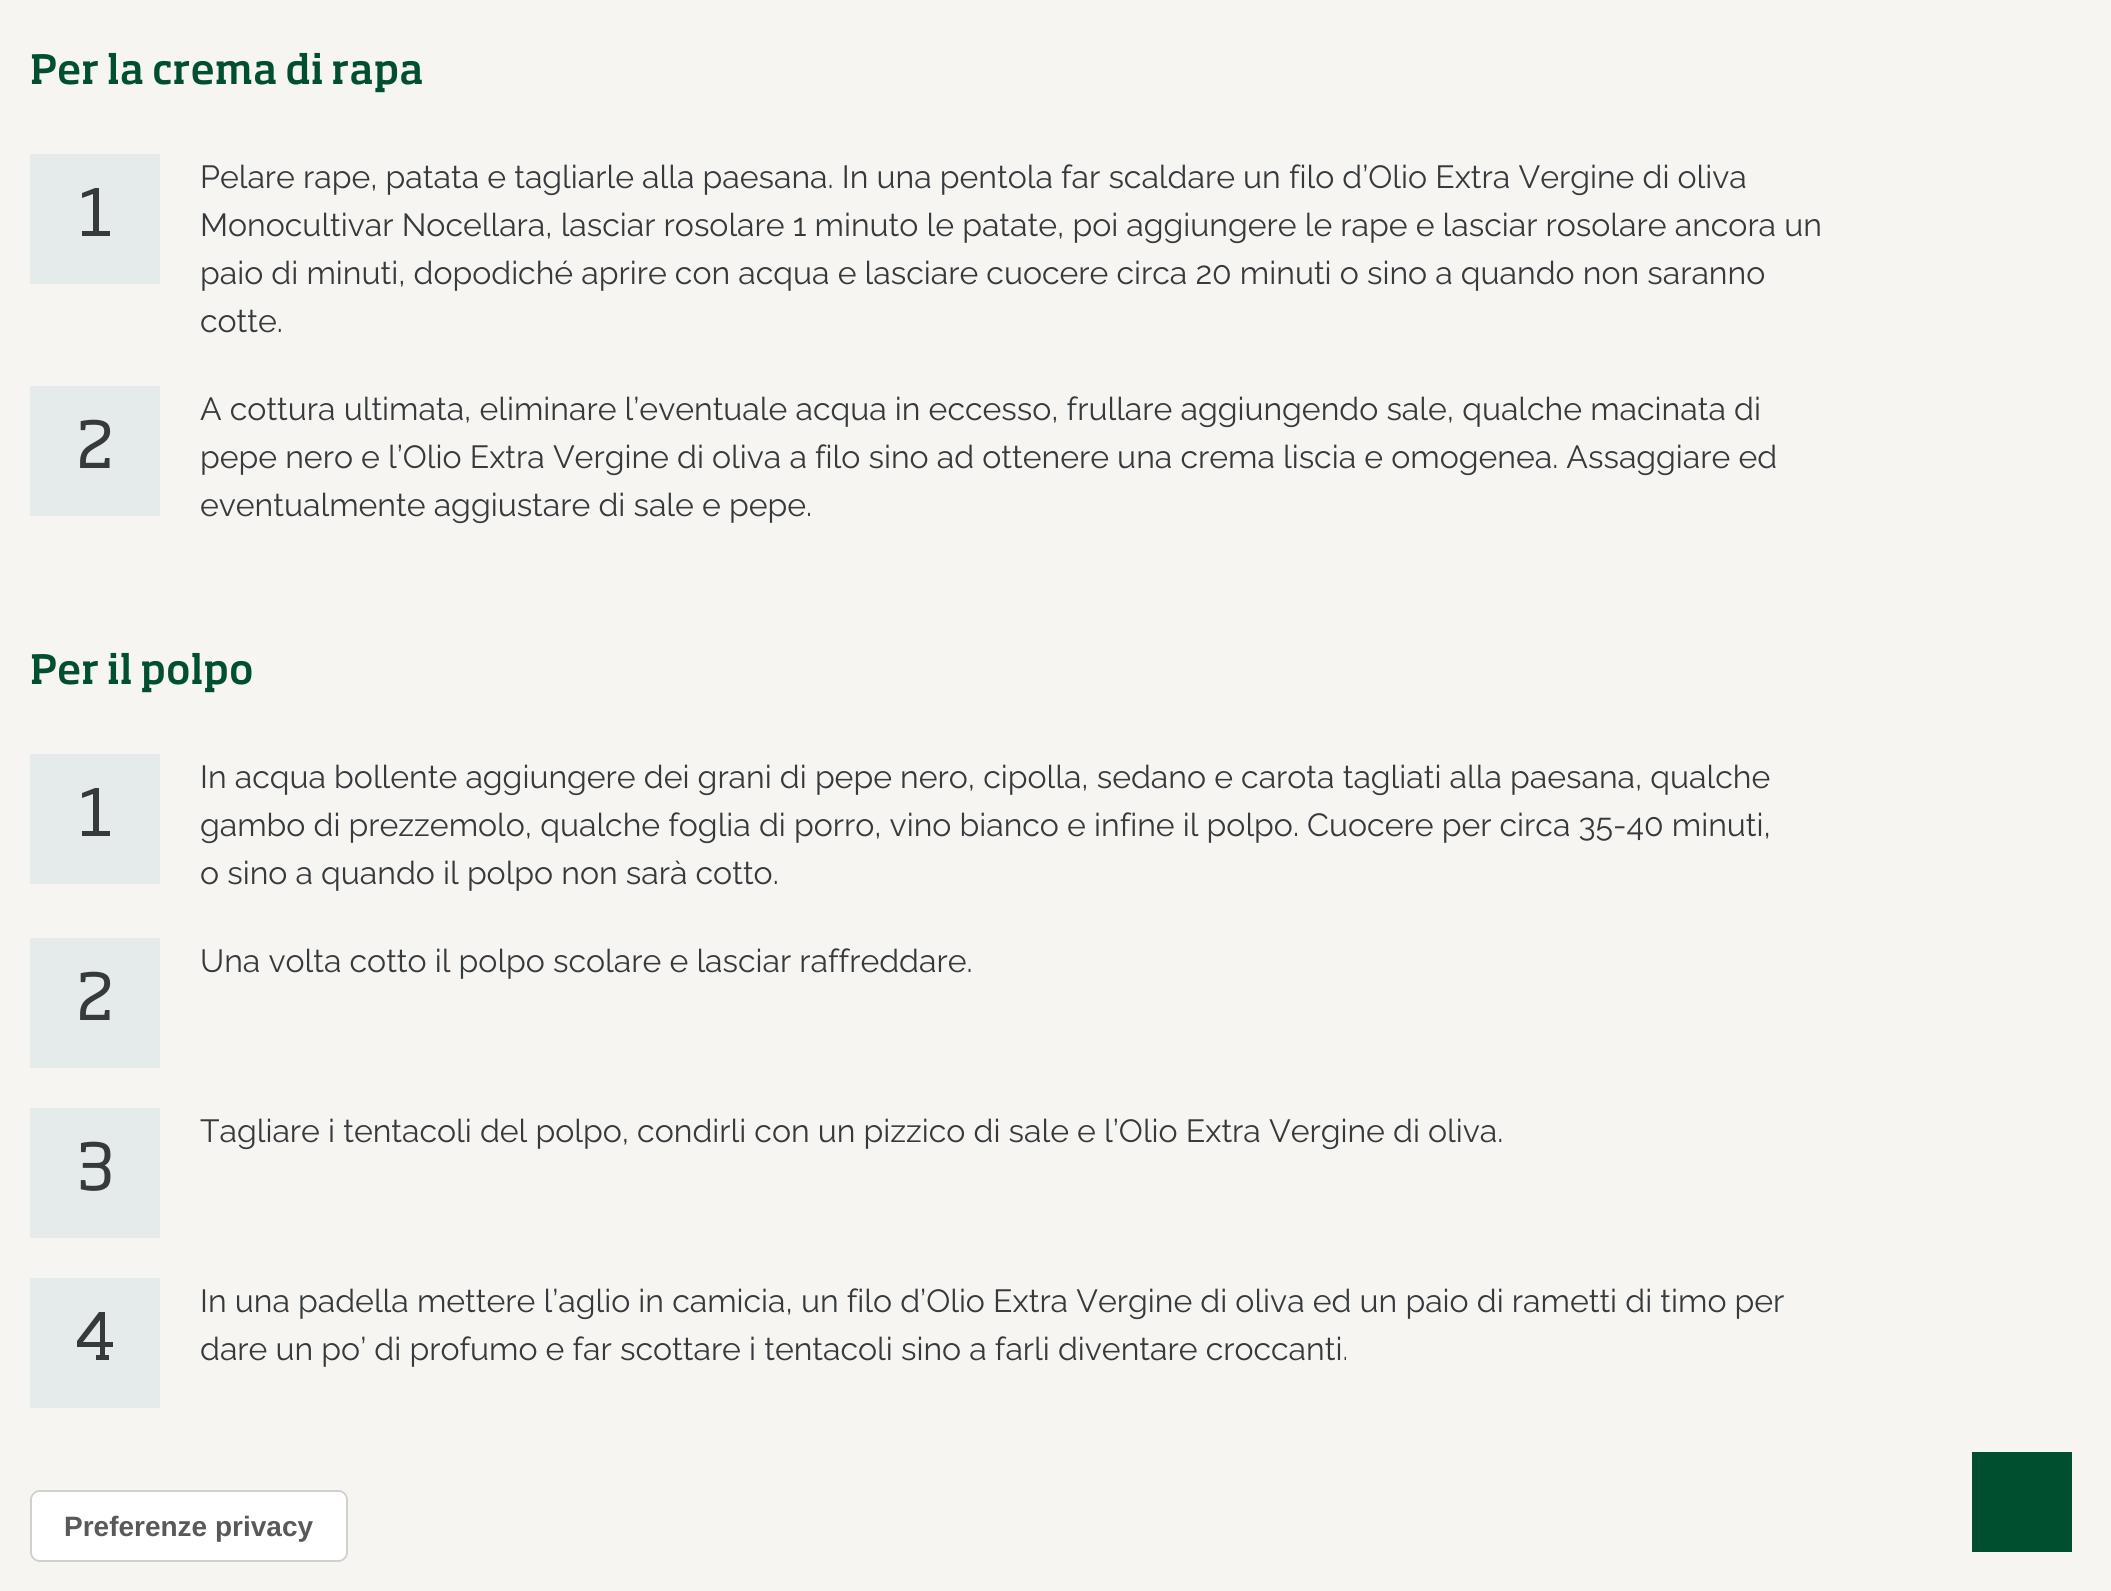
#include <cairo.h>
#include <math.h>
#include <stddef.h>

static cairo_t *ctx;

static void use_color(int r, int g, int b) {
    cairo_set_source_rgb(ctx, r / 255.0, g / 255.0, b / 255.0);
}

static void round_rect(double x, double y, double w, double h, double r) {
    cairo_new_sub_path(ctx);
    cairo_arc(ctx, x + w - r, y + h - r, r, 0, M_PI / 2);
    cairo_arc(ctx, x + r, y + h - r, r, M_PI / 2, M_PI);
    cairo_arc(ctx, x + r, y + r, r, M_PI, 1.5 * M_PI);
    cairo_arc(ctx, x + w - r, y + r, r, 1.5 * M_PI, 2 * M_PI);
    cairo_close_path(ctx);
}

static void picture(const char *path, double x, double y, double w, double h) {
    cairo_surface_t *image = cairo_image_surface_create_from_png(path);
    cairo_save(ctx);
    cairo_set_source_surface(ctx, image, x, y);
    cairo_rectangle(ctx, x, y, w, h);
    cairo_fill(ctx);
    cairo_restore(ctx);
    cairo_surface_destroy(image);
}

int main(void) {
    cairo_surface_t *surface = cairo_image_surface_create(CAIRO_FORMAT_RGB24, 2111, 1591);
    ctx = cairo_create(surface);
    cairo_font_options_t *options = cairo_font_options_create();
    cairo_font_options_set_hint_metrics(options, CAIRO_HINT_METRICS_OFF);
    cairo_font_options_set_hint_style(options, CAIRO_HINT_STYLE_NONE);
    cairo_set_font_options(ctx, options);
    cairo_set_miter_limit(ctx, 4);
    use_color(246, 245, 241);
    cairo_paint(ctx);
    picture("img1.png", 31, 52, 391, 41);
    use_color(229, 234, 234);
    cairo_rectangle(ctx, 30, 154, 130, 130);
    cairo_fill(ctx);
    use_color(55, 58, 60);
    cairo_new_path(ctx);
    cairo_move_to(ctx, 110, 236);
    cairo_line_to(ctx, 82, 236);
    cairo_line_to(ctx, 82, 231);
    cairo_line_to(ctx, 93, 231);
    cairo_line_to(ctx, 93, 194);
    cairo_line_to(ctx, 82, 198);
    cairo_line_to(ctx, 82, 193);
    cairo_line_to(ctx, 95, 188);
    cairo_line_to(ctx, 99, 188);
    cairo_line_to(ctx, 99, 231);
    cairo_line_to(ctx, 110, 231);
    cairo_close_path(ctx);
    cairo_fill(ctx);
    cairo_select_font_face(ctx, "Raleway", CAIRO_FONT_SLANT_NORMAL, CAIRO_FONT_WEIGHT_NORMAL);
    cairo_set_font_size(ctx, 32);
    cairo_move_to(ctx, 200, 188);
    cairo_show_text(ctx, "Pelare rape, patata e tagliarle alla paesana. In una pentola far scaldare un filo d’Olio Extra Vergine di oliva");
    cairo_move_to(ctx, 200, 236);
    cairo_show_text(ctx, "Monocultivar Nocellara, lasciar rosolare 1 minuto le patate, poi aggiungere le rape e lasciar rosolare ancora un");
    cairo_move_to(ctx, 200, 284);
    cairo_show_text(ctx, "paio di minuti, dopodiché aprire con acqua e lasciare cuocere circa 20 minuti o sino a quando non saranno");
    cairo_move_to(ctx, 200, 332);
    cairo_show_text(ctx, "cotte.");
    use_color(229, 234, 234);
    cairo_rectangle(ctx, 30, 386, 130, 130);
    cairo_fill(ctx);
    picture("img2.png", 80, 419, 31, 49);
    use_color(55, 58, 60);
    cairo_move_to(ctx, 200, 420);
    cairo_show_text(ctx, "A cottura ultimata, eliminare l’eventuale acqua in eccesso, frullare aggiungendo sale, qualche macinata di");
    cairo_move_to(ctx, 200, 468);
    cairo_show_text(ctx, "pepe nero e l’Olio Extra Vergine di oliva a filo sino ad ottenere una crema liscia e omogenea. Assaggiare ed");
    cairo_move_to(ctx, 200, 516);
    cairo_show_text(ctx, "eventualmente aggiustare di sale e pepe.");
    picture("img3.png", 31, 652, 221, 41);
    use_color(229, 234, 234);
    cairo_rectangle(ctx, 30, 754, 130, 130);
    cairo_fill(ctx);
    use_color(55, 58, 60);
    cairo_new_path(ctx);
    cairo_move_to(ctx, 110, 836);
    cairo_line_to(ctx, 82, 836);
    cairo_line_to(ctx, 82, 831);
    cairo_line_to(ctx, 93, 831);
    cairo_line_to(ctx, 93, 794);
    cairo_line_to(ctx, 82, 798);
    cairo_line_to(ctx, 82, 793);
    cairo_line_to(ctx, 95, 788);
    cairo_line_to(ctx, 99, 788);
    cairo_line_to(ctx, 99, 831);
    cairo_line_to(ctx, 110, 831);
    cairo_close_path(ctx);
    cairo_fill(ctx);
    cairo_move_to(ctx, 200, 788);
    cairo_show_text(ctx, "In acqua bollente aggiungere dei grani di pepe nero, cipolla, sedano e carota tagliati alla paesana, qualche");
    cairo_move_to(ctx, 200, 836);
    cairo_show_text(ctx, "gambo di prezzemolo, qualche foglia di porro, vino bianco e infine il polpo. Cuocere per circa 35-40 minuti,");
    cairo_move_to(ctx, 200, 884);
    cairo_show_text(ctx, "o sino a quando il polpo non sarà cotto.");
    use_color(229, 234, 234);
    cairo_rectangle(ctx, 30, 938, 130, 130);
    cairo_fill(ctx);
    picture("img2.png", 80, 971, 31, 49);
    use_color(55, 58, 60);
    cairo_move_to(ctx, 200, 972);
    cairo_show_text(ctx, "Una volta cotto il polpo scolare e lasciar raffreddare.");
    use_color(229, 234, 234);
    cairo_rectangle(ctx, 30, 1108, 130, 130);
    cairo_fill(ctx);
    picture("img4.png", 80, 1141, 31, 50);
    use_color(55, 58, 60);
    cairo_move_to(ctx, 200, 1142);
    cairo_show_text(ctx, "Tagliare i tentacoli del polpo, condirli con un pizzico di sale e l’Olio Extra Vergine di oliva.");
    use_color(229, 234, 234);
    cairo_rectangle(ctx, 30, 1278, 130, 130);
    cairo_fill(ctx);
    use_color(55, 58, 60);
    cairo_new_path(ctx);
    cairo_move_to(ctx, 113, 1347);
    cairo_line_to(ctx, 105, 1347);
    cairo_line_to(ctx, 105, 1355);
    cairo_line_to(ctx, 109, 1355);
    cairo_line_to(ctx, 109, 1360);
    cairo_line_to(ctx, 96, 1360);
    cairo_line_to(ctx, 96, 1355);
    cairo_line_to(ctx, 100, 1355);
    cairo_line_to(ctx, 100, 1347);
    cairo_line_to(ctx, 77, 1347);
    cairo_line_to(ctx, 77, 1341);
    cairo_line_to(ctx, 99, 1312);
    cairo_line_to(ctx, 105, 1312);
    cairo_line_to(ctx, 105, 1342);
    cairo_line_to(ctx, 113, 1342);
    cairo_close_path(ctx);
    cairo_move_to(ctx, 100, 1342);
    cairo_line_to(ctx, 100, 1320);
    cairo_line_to(ctx, 83, 1342);
    cairo_close_path(ctx);
    cairo_fill(ctx);
    cairo_move_to(ctx, 200, 1312);
    cairo_show_text(ctx, "In una padella mettere l’aglio in camicia, un filo d’Olio Extra Vergine di oliva ed un paio di rametti di timo per");
    cairo_move_to(ctx, 200, 1360);
    cairo_show_text(ctx, "dare un po’ di profumo e far scottare i tentacoli sino a farli diventare croccanti.");
    round_rect(31, 1491, 316, 70, 9);
    use_color(209, 208, 205);
    cairo_stroke(ctx);
    use_color(255, 255, 255);
    round_rect(32, 1492, 314, 68, 8);
    cairo_fill(ctx);
    cairo_select_font_face(ctx, "Liberation Sans", CAIRO_FONT_SLANT_NORMAL, CAIRO_FONT_WEIGHT_BOLD);
    cairo_set_font_size(ctx, 28);
    use_color(89, 89, 89);
    cairo_move_to(ctx, 64, 1536);
    cairo_show_text(ctx, "Preferenze privacy");
    use_color(0, 79, 47);
    cairo_rectangle(ctx, 1972, 1452, 100, 100);
    cairo_fill(ctx);
    cairo_surface_write_to_png(surface, "result.png");
    cairo_font_options_destroy(options);
    cairo_destroy(ctx);
    cairo_surface_destroy(surface);
    return 0;
}
